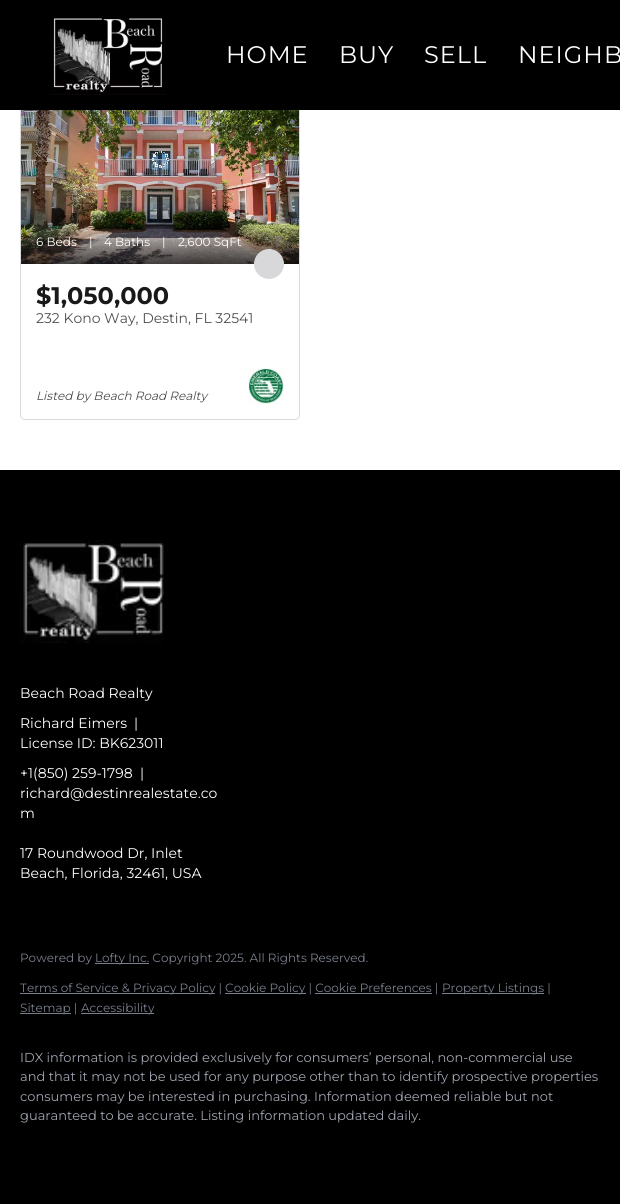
#include <cairo.h>
#include <math.h>
#include <stddef.h>

static cairo_t *ctx;

static void use_color(int r, int g, int b) {
    cairo_set_source_rgb(ctx, r / 255.0, g / 255.0, b / 255.0);
}

static void spaced_text(double x, double y, const char *s, double letter, double word) {
    cairo_move_to(ctx, x, y);
    while (*s) {
        char ch[5] = {0};
        int n = 0;
        do ch[n++] = *s++; while ((*s & 0xC0) == 0x80);
        cairo_show_text(ctx, ch);
        cairo_rel_move_to(ctx, letter + word * (*ch == ' '), 0);
    }
}

static void round_rect(double x, double y, double w, double h, double r) {
    cairo_new_sub_path(ctx);
    cairo_arc(ctx, x + w - r, y + h - r, r, 0, M_PI / 2);
    cairo_arc(ctx, x + r, y + h - r, r, M_PI / 2, M_PI);
    cairo_arc(ctx, x + r, y + r, r, M_PI, 1.5 * M_PI);
    cairo_arc(ctx, x + w - r, y + r, r, 1.5 * M_PI, 2 * M_PI);
    cairo_close_path(ctx);
}

static void picture(const char *path, double x, double y, double w, double h) {
    cairo_surface_t *image = cairo_image_surface_create_from_png(path);
    cairo_save(ctx);
    cairo_set_source_surface(ctx, image, x, y);
    cairo_rectangle(ctx, x, y, w, h);
    cairo_fill(ctx);
    cairo_restore(ctx);
    cairo_surface_destroy(image);
}

int main(void) {
    cairo_surface_t *surface = cairo_image_surface_create(CAIRO_FORMAT_RGB24, 620, 1204);
    ctx = cairo_create(surface);
    cairo_font_options_t *options = cairo_font_options_create();
    cairo_font_options_set_hint_metrics(options, CAIRO_HINT_METRICS_OFF);
    cairo_font_options_set_hint_style(options, CAIRO_HINT_STYLE_NONE);
    cairo_set_font_options(ctx, options);
    cairo_set_miter_limit(ctx, 4);
    use_color(255, 255, 255);
    cairo_paint(ctx);
    round_rect(20.5, 53.5, 279, 366, 4.5);
    use_color(218, 218, 218);
    cairo_set_line_width(ctx, 1);
    cairo_stroke(ctx);
    use_color(0, 0, 0);
    cairo_rectangle(ctx, 0, 0, 620, 110);
    cairo_fill(ctx);
    picture("img1.png", 50, 18, 116, 77);
    cairo_select_font_face(ctx, "Montserrat", CAIRO_FONT_SLANT_NORMAL, CAIRO_FONT_WEIGHT_NORMAL);
    cairo_set_font_size(ctx, 24);
    use_color(255, 255, 255);
    spaced_text(226, 63, "HOME", 1, 0);
    spaced_text(339, 63, "BUY", 1, 0);
    spaced_text(424, 63, "SELL", 1, 0);
    spaced_text(518, 63, "NEIGHB", 1, 0);
    picture("img2.png", 21, 110, 278, 154);
    picture("img3.png", 152, 151, 17, 17);
    cairo_set_font_size(ctx, 12);
    cairo_move_to(ctx, 36, 246);
    cairo_show_text(ctx, "6 Beds");
    cairo_move_to(ctx, 89, 246);
    cairo_show_text(ctx, "|");
    cairo_move_to(ctx, 104, 246);
    cairo_show_text(ctx, "4 Baths");
    cairo_move_to(ctx, 162, 246);
    cairo_show_text(ctx, "|");
    cairo_move_to(ctx, 178, 246);
    cairo_show_text(ctx, "2,600 SqFt");
    use_color(216, 216, 219);
    cairo_new_path(ctx);
    cairo_arc(ctx, 269, 264, 15, 0, 2 * M_PI);
    cairo_fill(ctx);
    cairo_select_font_face(ctx, "Montserrat", CAIRO_FONT_SLANT_NORMAL, CAIRO_FONT_WEIGHT_BOLD);
    cairo_set_font_size(ctx, 24);
    use_color(25, 25, 25);
    cairo_move_to(ctx, 36, 304);
    cairo_show_text(ctx, "$1,050,000");
    cairo_select_font_face(ctx, "Montserrat", CAIRO_FONT_SLANT_NORMAL, CAIRO_FONT_WEIGHT_NORMAL);
    cairo_set_font_size(ctx, 14);
    use_color(80, 80, 80);
    cairo_move_to(ctx, 36, 323);
    cairo_show_text(ctx, "232 Kono Way, Destin, FL 32541");
    cairo_select_font_face(ctx, "Montserrat", CAIRO_FONT_SLANT_ITALIC, CAIRO_FONT_WEIGHT_NORMAL);
    cairo_set_font_size(ctx, 12);
    cairo_move_to(ctx, 36, 400);
    cairo_show_text(ctx, "Listed by Beach Road Realty");
    picture("img4.png", 248, 368, 36, 36);
    use_color(0, 0, 0);
    cairo_rectangle(ctx, 0, 470, 620, 734);
    cairo_fill(ctx);
    picture("img5.png", 20, 540, 144, 103);
    cairo_select_font_face(ctx, "Montserrat", CAIRO_FONT_SLANT_NORMAL, CAIRO_FONT_WEIGHT_NORMAL);
    cairo_set_font_size(ctx, 14);
    use_color(255, 255, 255);
    cairo_move_to(ctx, 20, 698);
    cairo_show_text(ctx, "Beach Road Realty");
    cairo_move_to(ctx, 20, 728);
    cairo_show_text(ctx, "Richard Eimers");
    cairo_move_to(ctx, 134, 728);
    cairo_show_text(ctx, "|");
    cairo_move_to(ctx, 20, 748);
    cairo_show_text(ctx, "License ID: BK623011");
    cairo_move_to(ctx, 20, 778);
    cairo_show_text(ctx, "+1(850) 259-1798");
    cairo_move_to(ctx, 140, 778);
    cairo_show_text(ctx, "|");
    cairo_move_to(ctx, 20, 798);
    cairo_show_text(ctx, "richard@destinrealestate.co");
    cairo_move_to(ctx, 20, 818);
    cairo_show_text(ctx, "m");
    cairo_move_to(ctx, 20, 858);
    cairo_show_text(ctx, "17 Roundwood Dr, Inlet");
    cairo_move_to(ctx, 20, 878);
    cairo_show_text(ctx, "Beach, Florida, 32461, USA");
    cairo_set_font_size(ctx, 12);
    use_color(121, 126, 139);
    cairo_move_to(ctx, 20, 962);
    cairo_show_text(ctx, "Powered by");
    cairo_rectangle(ctx, 95, 963, 54, 1);
    cairo_fill(ctx);
    cairo_move_to(ctx, 95, 962);
    cairo_show_text(ctx, "Lofty Inc. Copyright 2025. All Rights Reserved.");
    cairo_rectangle(ctx, 20, 993, 195, 1);
    cairo_fill(ctx);
    cairo_move_to(ctx, 20, 992);
    cairo_show_text(ctx, "Terms of Service & Privacy Policy |");
    cairo_rectangle(ctx, 225, 993, 81, 1);
    cairo_fill(ctx);
    cairo_move_to(ctx, 225, 992);
    cairo_show_text(ctx, "Cookie Policy | Cookie Preferences |");
    cairo_rectangle(ctx, 442, 993, 102, 1);
    cairo_fill(ctx);
    cairo_move_to(ctx, 442, 992);
    cairo_show_text(ctx, "Property Listings |");
    cairo_rectangle(ctx, 315, 993, 117, 1);
    cairo_fill(ctx);
    cairo_rectangle(ctx, 20, 1013, 51, 1);
    cairo_fill(ctx);
    cairo_move_to(ctx, 20, 1012);
    cairo_show_text(ctx, "Sitemap |");
    cairo_rectangle(ctx, 81, 1013, 73, 1);
    cairo_fill(ctx);
    cairo_move_to(ctx, 81, 1012);
    cairo_show_text(ctx, "Accessibility");
    cairo_set_font_size(ctx, 13);
    use_color(160, 163, 175);
    cairo_move_to(ctx, 20, 1062);
    cairo_show_text(ctx, "IDX information is provided exclusively for consumers’ personal, non-commercial use");
    cairo_move_to(ctx, 20, 1081);
    cairo_show_text(ctx, "and that it may not be used for any purpose other than to identify prospective properties");
    cairo_move_to(ctx, 20, 1101);
    cairo_show_text(ctx, "consumers may be interested in purchasing. Information deemed reliable but not");
    cairo_move_to(ctx, 20, 1120);
    cairo_show_text(ctx, "guaranteed to be accurate. Listing information updated daily.");
    cairo_surface_write_to_png(surface, "result.png");
    cairo_font_options_destroy(options);
    cairo_destroy(ctx);
    cairo_surface_destroy(surface);
    return 0;
}
